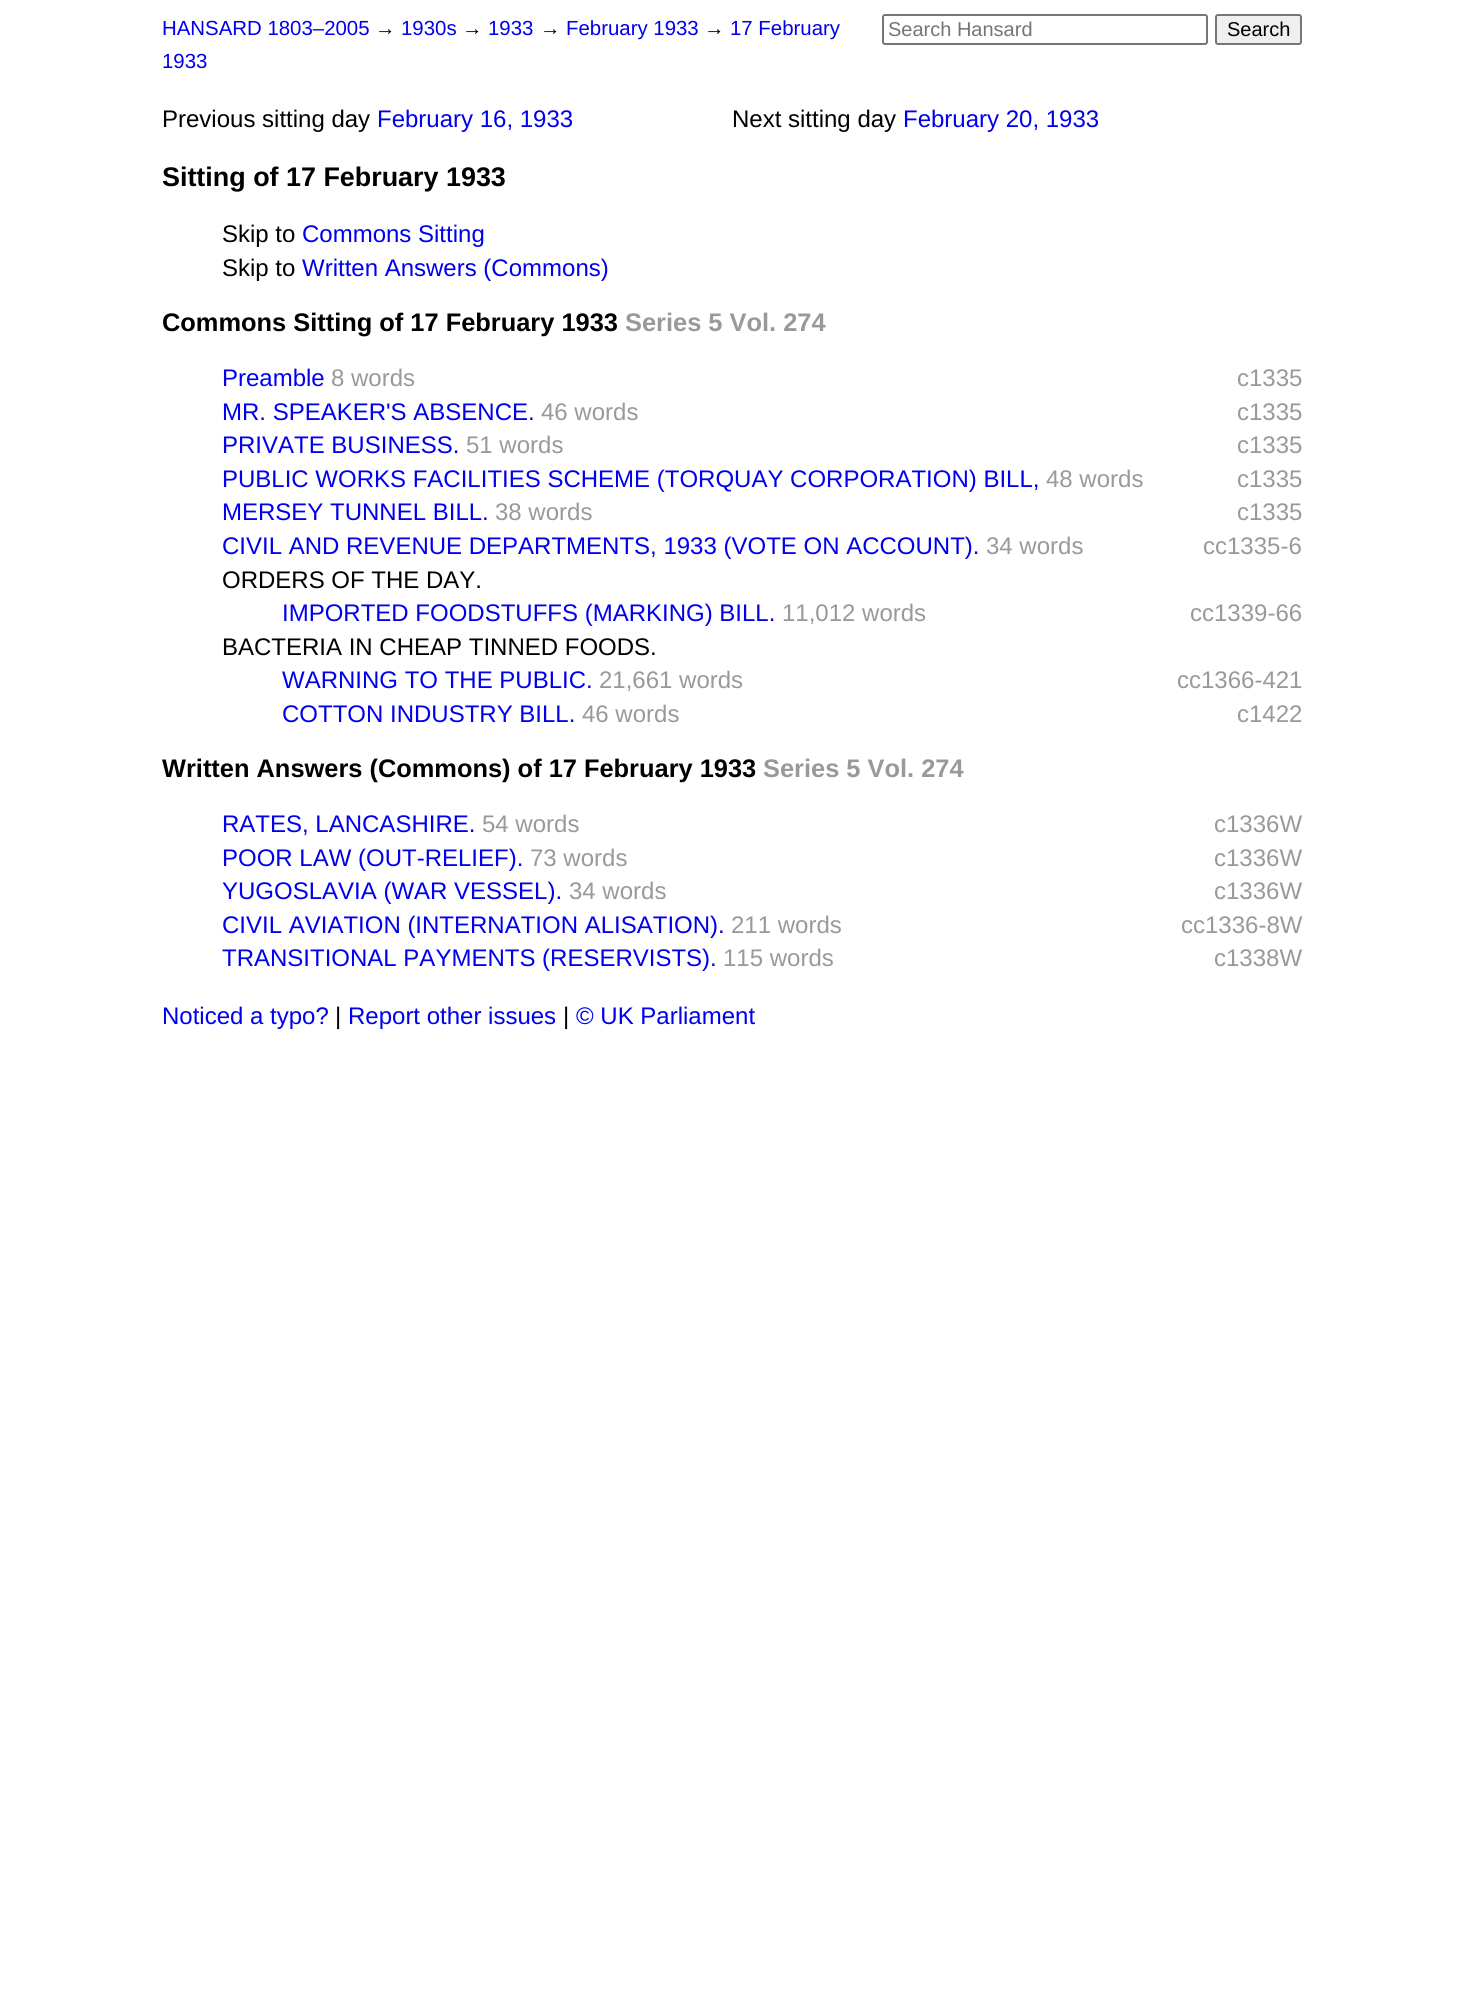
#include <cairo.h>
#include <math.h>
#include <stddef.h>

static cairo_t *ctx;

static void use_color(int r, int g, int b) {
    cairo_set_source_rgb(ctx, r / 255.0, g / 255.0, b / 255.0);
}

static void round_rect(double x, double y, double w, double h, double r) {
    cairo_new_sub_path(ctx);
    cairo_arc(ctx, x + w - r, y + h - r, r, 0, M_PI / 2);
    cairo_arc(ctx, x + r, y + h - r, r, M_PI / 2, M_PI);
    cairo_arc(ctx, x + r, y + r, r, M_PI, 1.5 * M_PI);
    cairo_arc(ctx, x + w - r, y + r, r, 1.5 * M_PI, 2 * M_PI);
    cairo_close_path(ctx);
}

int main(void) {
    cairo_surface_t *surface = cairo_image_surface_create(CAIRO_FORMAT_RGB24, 1463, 2008);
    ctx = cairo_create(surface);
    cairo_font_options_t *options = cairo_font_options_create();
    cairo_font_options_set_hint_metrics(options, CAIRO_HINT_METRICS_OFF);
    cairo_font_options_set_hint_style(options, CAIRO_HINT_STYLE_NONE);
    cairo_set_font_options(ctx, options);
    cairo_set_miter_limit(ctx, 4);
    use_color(255, 255, 255);
    cairo_paint(ctx);
    cairo_select_font_face(ctx, "Liberation Sans", CAIRO_FONT_SLANT_NORMAL, CAIRO_FONT_WEIGHT_NORMAL);
    cairo_set_font_size(ctx, 20.4);
    use_color(0, 0, 238);
    cairo_move_to(ctx, 162, 35);
    cairo_show_text(ctx, "HANSARD 1803–2005");
    use_color(0, 0, 0);
    cairo_move_to(ctx, 375, 35);
    cairo_show_text(ctx, "→");
    use_color(0, 0, 238);
    cairo_move_to(ctx, 401, 35);
    cairo_show_text(ctx, "1930s");
    use_color(0, 0, 0);
    cairo_move_to(ctx, 462, 35);
    cairo_show_text(ctx, "→");
    use_color(0, 0, 238);
    cairo_move_to(ctx, 488, 35);
    cairo_show_text(ctx, "1933");
    use_color(0, 0, 0);
    cairo_move_to(ctx, 540, 35);
    cairo_show_text(ctx, "→");
    use_color(0, 0, 238);
    cairo_move_to(ctx, 566, 35);
    cairo_show_text(ctx, "February 1933");
    use_color(0, 0, 0);
    cairo_move_to(ctx, 704, 35);
    cairo_show_text(ctx, "→");
    use_color(0, 0, 238);
    cairo_move_to(ctx, 730, 35);
    cairo_show_text(ctx, "17 February");
    cairo_move_to(ctx, 162, 68);
    cairo_show_text(ctx, "1933");
    round_rect(883, 15, 324, 29, 2);
    use_color(118, 118, 118);
    cairo_stroke(ctx);
    cairo_set_font_size(ctx, 20);
    use_color(117, 117, 117);
    cairo_move_to(ctx, 888, 36);
    cairo_show_text(ctx, "Search Hansard");
    use_color(239, 239, 239);
    round_rect(1216, 15, 85, 29, 2);
    cairo_fill_preserve(ctx);
    use_color(118, 118, 118);
    cairo_stroke(ctx);
    use_color(0, 0, 0);
    cairo_move_to(ctx, 1227, 36);
    cairo_show_text(ctx, "Search");
    cairo_set_font_size(ctx, 24);
    cairo_move_to(ctx, 162, 127);
    cairo_show_text(ctx, "Previous sitting day");
    use_color(0, 0, 238);
    cairo_move_to(ctx, 377, 127);
    cairo_show_text(ctx, "February 16, 1933");
    use_color(0, 0, 0);
    cairo_move_to(ctx, 732, 127);
    cairo_show_text(ctx, "Next sitting day");
    use_color(0, 0, 238);
    cairo_move_to(ctx, 903, 127);
    cairo_show_text(ctx, "February 20, 1933");
    cairo_select_font_face(ctx, "Liberation Sans", CAIRO_FONT_SLANT_NORMAL, CAIRO_FONT_WEIGHT_BOLD);
    cairo_set_font_size(ctx, 26.9);
    use_color(0, 0, 0);
    cairo_move_to(ctx, 162, 186);
    cairo_show_text(ctx, "Sitting of 17 February 1933");
    cairo_select_font_face(ctx, "Liberation Sans", CAIRO_FONT_SLANT_NORMAL, CAIRO_FONT_WEIGHT_NORMAL);
    cairo_set_font_size(ctx, 24);
    cairo_move_to(ctx, 222, 242);
    cairo_show_text(ctx, "Skip to");
    use_color(0, 0, 238);
    cairo_move_to(ctx, 302, 242);
    cairo_show_text(ctx, "Commons Sitting");
    use_color(0, 0, 0);
    cairo_move_to(ctx, 222, 276);
    cairo_show_text(ctx, "Skip to");
    use_color(0, 0, 238);
    cairo_move_to(ctx, 302, 276);
    cairo_show_text(ctx, "Written Answers (Commons)");
    cairo_select_font_face(ctx, "Liberation Sans", CAIRO_FONT_SLANT_NORMAL, CAIRO_FONT_WEIGHT_BOLD);
    cairo_set_font_size(ctx, 25.4);
    use_color(0, 0, 0);
    cairo_move_to(ctx, 162, 331);
    cairo_show_text(ctx, "Commons Sitting of 17 February 1933");
    use_color(153, 153, 153);
    cairo_move_to(ctx, 625, 331);
    cairo_show_text(ctx, "Series 5 Vol. 274");
    cairo_select_font_face(ctx, "Liberation Sans", CAIRO_FONT_SLANT_NORMAL, CAIRO_FONT_WEIGHT_NORMAL);
    cairo_set_font_size(ctx, 24);
    use_color(0, 0, 238);
    cairo_move_to(ctx, 222, 386);
    cairo_show_text(ctx, "Preamble");
    use_color(153, 153, 153);
    cairo_move_to(ctx, 331, 386);
    cairo_show_text(ctx, "8 words");
    cairo_move_to(ctx, 1237, 386);
    cairo_show_text(ctx, "c1335");
    use_color(0, 0, 238);
    cairo_move_to(ctx, 222, 420);
    cairo_show_text(ctx, "MR. SPEAKER'S ABSENCE.");
    use_color(153, 153, 153);
    cairo_move_to(ctx, 541, 420);
    cairo_show_text(ctx, "46 words");
    cairo_move_to(ctx, 1237, 420);
    cairo_show_text(ctx, "c1335");
    use_color(0, 0, 238);
    cairo_move_to(ctx, 222, 453);
    cairo_show_text(ctx, "PRIVATE BUSINESS.");
    use_color(153, 153, 153);
    cairo_move_to(ctx, 466, 453);
    cairo_show_text(ctx, "51 words");
    cairo_move_to(ctx, 1237, 453);
    cairo_show_text(ctx, "c1335");
    use_color(0, 0, 238);
    cairo_move_to(ctx, 222, 487);
    cairo_show_text(ctx, "PUBLIC WORKS FACILITIES SCHEME (TORQUAY CORPORATION) BILL,");
    use_color(153, 153, 153);
    cairo_move_to(ctx, 1046, 487);
    cairo_show_text(ctx, "48 words");
    cairo_move_to(ctx, 1237, 487);
    cairo_show_text(ctx, "c1335");
    use_color(0, 0, 238);
    cairo_move_to(ctx, 222, 520);
    cairo_show_text(ctx, "MERSEY TUNNEL BILL.");
    use_color(153, 153, 153);
    cairo_move_to(ctx, 495, 520);
    cairo_show_text(ctx, "38 words");
    cairo_move_to(ctx, 1237, 520);
    cairo_show_text(ctx, "c1335");
    use_color(0, 0, 238);
    cairo_move_to(ctx, 222, 554);
    cairo_show_text(ctx, "CIVIL AND REVENUE DEPARTMENTS, 1933 (VOTE ON ACCOUNT).");
    use_color(153, 153, 153);
    cairo_move_to(ctx, 986, 554);
    cairo_show_text(ctx, "34 words");
    cairo_move_to(ctx, 1203, 554);
    cairo_show_text(ctx, "cc1335-6");
    use_color(0, 0, 0);
    cairo_move_to(ctx, 222, 588);
    cairo_show_text(ctx, "ORDERS OF THE DAY.");
    use_color(0, 0, 238);
    cairo_move_to(ctx, 282, 621);
    cairo_show_text(ctx, "IMPORTED FOODSTUFFS (MARKING) BILL.");
    use_color(153, 153, 153);
    cairo_move_to(ctx, 782, 621);
    cairo_show_text(ctx, "11,012 words");
    cairo_move_to(ctx, 1190, 621);
    cairo_show_text(ctx, "cc1339-66");
    use_color(0, 0, 0);
    cairo_move_to(ctx, 222, 655);
    cairo_show_text(ctx, "BACTERIA IN CHEAP TINNED FOODS.");
    use_color(0, 0, 238);
    cairo_move_to(ctx, 282, 688);
    cairo_show_text(ctx, "WARNING TO THE PUBLIC.");
    use_color(153, 153, 153);
    cairo_move_to(ctx, 599, 688);
    cairo_show_text(ctx, "21,661 words");
    cairo_move_to(ctx, 1177, 688);
    cairo_show_text(ctx, "cc1366-421");
    use_color(0, 0, 238);
    cairo_move_to(ctx, 282, 722);
    cairo_show_text(ctx, "COTTON INDUSTRY BILL.");
    use_color(153, 153, 153);
    cairo_move_to(ctx, 582, 722);
    cairo_show_text(ctx, "46 words");
    cairo_move_to(ctx, 1237, 722);
    cairo_show_text(ctx, "c1422");
    cairo_select_font_face(ctx, "Liberation Sans", CAIRO_FONT_SLANT_NORMAL, CAIRO_FONT_WEIGHT_BOLD);
    cairo_set_font_size(ctx, 25.4);
    use_color(0, 0, 0);
    cairo_move_to(ctx, 162, 777);
    cairo_show_text(ctx, "Written Answers (Commons) of 17 February 1933");
    use_color(153, 153, 153);
    cairo_move_to(ctx, 763, 777);
    cairo_show_text(ctx, "Series 5 Vol. 274");
    cairo_select_font_face(ctx, "Liberation Sans", CAIRO_FONT_SLANT_NORMAL, CAIRO_FONT_WEIGHT_NORMAL);
    cairo_set_font_size(ctx, 24);
    use_color(0, 0, 238);
    cairo_move_to(ctx, 222, 832);
    cairo_show_text(ctx, "RATES, LANCASHIRE.");
    use_color(153, 153, 153);
    cairo_move_to(ctx, 482, 832);
    cairo_show_text(ctx, "54 words");
    cairo_move_to(ctx, 1214, 832);
    cairo_show_text(ctx, "c1336W");
    use_color(0, 0, 238);
    cairo_move_to(ctx, 222, 866);
    cairo_show_text(ctx, "POOR LAW (OUT-RELIEF).");
    use_color(153, 153, 153);
    cairo_move_to(ctx, 530, 866);
    cairo_show_text(ctx, "73 words");
    cairo_move_to(ctx, 1214, 866);
    cairo_show_text(ctx, "c1336W");
    use_color(0, 0, 238);
    cairo_move_to(ctx, 222, 899);
    cairo_show_text(ctx, "YUGOSLAVIA (WAR VESSEL).");
    use_color(153, 153, 153);
    cairo_move_to(ctx, 569, 899);
    cairo_show_text(ctx, "34 words");
    cairo_move_to(ctx, 1214, 899);
    cairo_show_text(ctx, "c1336W");
    use_color(0, 0, 238);
    cairo_move_to(ctx, 222, 933);
    cairo_show_text(ctx, "CIVIL AVIATION (INTERNATION ALISATION).");
    use_color(153, 153, 153);
    cairo_move_to(ctx, 731, 933);
    cairo_show_text(ctx, "211 words");
    cairo_move_to(ctx, 1181, 933);
    cairo_show_text(ctx, "cc1336-8W");
    use_color(0, 0, 238);
    cairo_move_to(ctx, 222, 966);
    cairo_show_text(ctx, "TRANSITIONAL PAYMENTS (RESERVISTS).");
    use_color(153, 153, 153);
    cairo_move_to(ctx, 723, 966);
    cairo_show_text(ctx, "115 words");
    cairo_move_to(ctx, 1214, 966);
    cairo_show_text(ctx, "c1338W");
    use_color(0, 0, 238);
    cairo_move_to(ctx, 162, 1024);
    cairo_show_text(ctx, "Noticed a typo?");
    use_color(0, 0, 0);
    cairo_move_to(ctx, 335, 1024);
    cairo_show_text(ctx, "|");
    use_color(0, 0, 238);
    cairo_move_to(ctx, 348, 1024);
    cairo_show_text(ctx, "Report other issues");
    use_color(0, 0, 0);
    cairo_move_to(ctx, 563, 1024);
    cairo_show_text(ctx, "|");
    use_color(0, 0, 238);
    cairo_move_to(ctx, 576, 1024);
    cairo_show_text(ctx, "© UK Parliament");
    cairo_surface_write_to_png(surface, "result.png");
    cairo_font_options_destroy(options);
    cairo_destroy(ctx);
    cairo_surface_destroy(surface);
    return 0;
}
